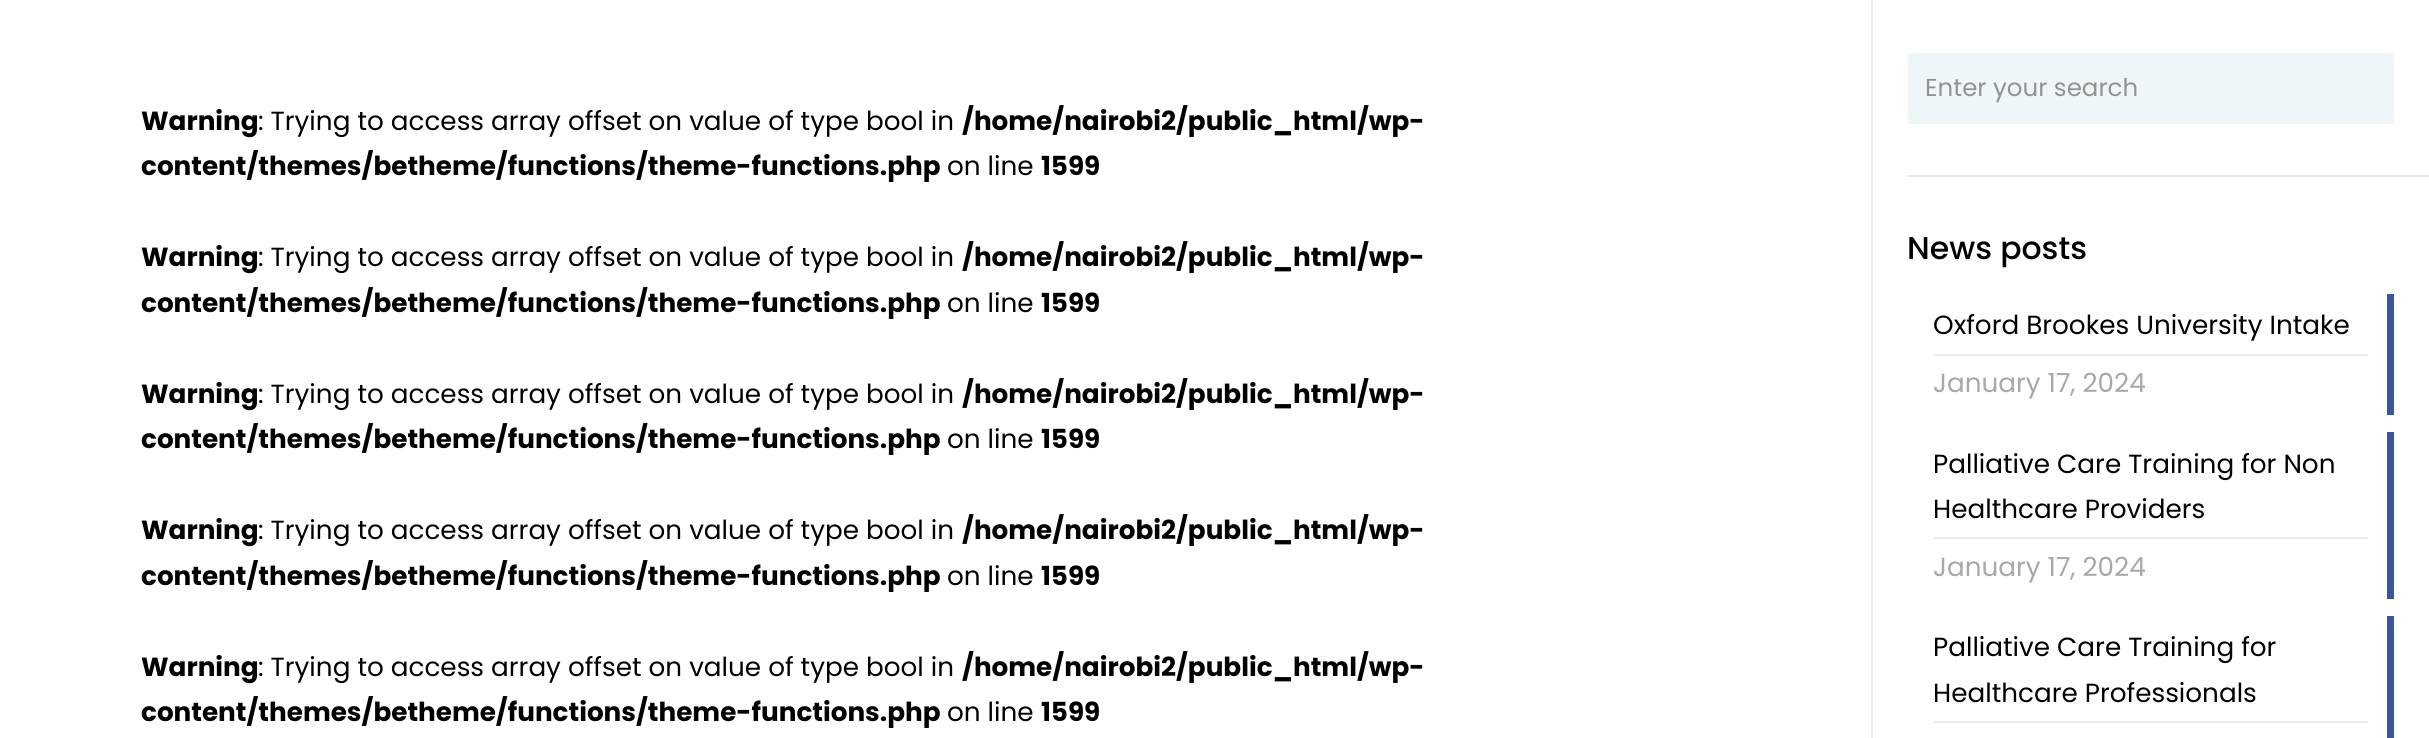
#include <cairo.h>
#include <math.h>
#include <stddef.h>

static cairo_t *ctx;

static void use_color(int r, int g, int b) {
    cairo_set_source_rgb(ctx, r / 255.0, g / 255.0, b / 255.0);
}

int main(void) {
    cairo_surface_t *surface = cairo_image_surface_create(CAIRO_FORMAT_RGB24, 2429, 738);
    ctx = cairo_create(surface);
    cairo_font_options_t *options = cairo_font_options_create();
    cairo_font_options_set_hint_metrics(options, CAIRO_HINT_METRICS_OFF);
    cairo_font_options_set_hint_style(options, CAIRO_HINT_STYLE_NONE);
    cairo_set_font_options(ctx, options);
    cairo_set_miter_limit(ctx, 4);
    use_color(255, 255, 255);
    cairo_paint(ctx);
    cairo_select_font_face(ctx, "Poppins", CAIRO_FONT_SLANT_NORMAL, CAIRO_FONT_WEIGHT_BOLD);
    cairo_set_font_size(ctx, 26.25);
    use_color(0, 0, 0);
    cairo_move_to(ctx, 141, 130);
    cairo_show_text(ctx, "Warning");
    cairo_select_font_face(ctx, "Poppins", CAIRO_FONT_SLANT_NORMAL, CAIRO_FONT_WEIGHT_NORMAL);
    cairo_move_to(ctx, 258, 130);
    cairo_show_text(ctx, ": Trying to access array offset on value of type bool in");
    cairo_select_font_face(ctx, "Poppins", CAIRO_FONT_SLANT_NORMAL, CAIRO_FONT_WEIGHT_BOLD);
    cairo_move_to(ctx, 962, 130);
    cairo_show_text(ctx, "/home/nairobi2/public_html/wp-");
    cairo_move_to(ctx, 141, 175);
    cairo_show_text(ctx, "content/themes/betheme/functions/theme-functions.php");
    cairo_select_font_face(ctx, "Poppins", CAIRO_FONT_SLANT_NORMAL, CAIRO_FONT_WEIGHT_NORMAL);
    cairo_move_to(ctx, 947, 175);
    cairo_show_text(ctx, "on line");
    cairo_select_font_face(ctx, "Poppins", CAIRO_FONT_SLANT_NORMAL, CAIRO_FONT_WEIGHT_BOLD);
    cairo_move_to(ctx, 1041, 175);
    cairo_show_text(ctx, "1599");
    cairo_move_to(ctx, 141, 266);
    cairo_show_text(ctx, "Warning");
    cairo_select_font_face(ctx, "Poppins", CAIRO_FONT_SLANT_NORMAL, CAIRO_FONT_WEIGHT_NORMAL);
    cairo_move_to(ctx, 258, 266);
    cairo_show_text(ctx, ": Trying to access array offset on value of type bool in");
    cairo_select_font_face(ctx, "Poppins", CAIRO_FONT_SLANT_NORMAL, CAIRO_FONT_WEIGHT_BOLD);
    cairo_move_to(ctx, 962, 266);
    cairo_show_text(ctx, "/home/nairobi2/public_html/wp-");
    cairo_move_to(ctx, 141, 312);
    cairo_show_text(ctx, "content/themes/betheme/functions/theme-functions.php");
    cairo_select_font_face(ctx, "Poppins", CAIRO_FONT_SLANT_NORMAL, CAIRO_FONT_WEIGHT_NORMAL);
    cairo_move_to(ctx, 947, 312);
    cairo_show_text(ctx, "on line");
    cairo_select_font_face(ctx, "Poppins", CAIRO_FONT_SLANT_NORMAL, CAIRO_FONT_WEIGHT_BOLD);
    cairo_move_to(ctx, 1041, 312);
    cairo_show_text(ctx, "1599");
    cairo_move_to(ctx, 141, 403);
    cairo_show_text(ctx, "Warning");
    cairo_select_font_face(ctx, "Poppins", CAIRO_FONT_SLANT_NORMAL, CAIRO_FONT_WEIGHT_NORMAL);
    cairo_move_to(ctx, 258, 403);
    cairo_show_text(ctx, ": Trying to access array offset on value of type bool in");
    cairo_select_font_face(ctx, "Poppins", CAIRO_FONT_SLANT_NORMAL, CAIRO_FONT_WEIGHT_BOLD);
    cairo_move_to(ctx, 962, 403);
    cairo_show_text(ctx, "/home/nairobi2/public_html/wp-");
    cairo_move_to(ctx, 141, 448);
    cairo_show_text(ctx, "content/themes/betheme/functions/theme-functions.php");
    cairo_select_font_face(ctx, "Poppins", CAIRO_FONT_SLANT_NORMAL, CAIRO_FONT_WEIGHT_NORMAL);
    cairo_move_to(ctx, 947, 448);
    cairo_show_text(ctx, "on line");
    cairo_select_font_face(ctx, "Poppins", CAIRO_FONT_SLANT_NORMAL, CAIRO_FONT_WEIGHT_BOLD);
    cairo_move_to(ctx, 1041, 448);
    cairo_show_text(ctx, "1599");
    cairo_move_to(ctx, 141, 539);
    cairo_show_text(ctx, "Warning");
    cairo_select_font_face(ctx, "Poppins", CAIRO_FONT_SLANT_NORMAL, CAIRO_FONT_WEIGHT_NORMAL);
    cairo_move_to(ctx, 258, 539);
    cairo_show_text(ctx, ": Trying to access array offset on value of type bool in");
    cairo_select_font_face(ctx, "Poppins", CAIRO_FONT_SLANT_NORMAL, CAIRO_FONT_WEIGHT_BOLD);
    cairo_move_to(ctx, 962, 539);
    cairo_show_text(ctx, "/home/nairobi2/public_html/wp-");
    cairo_move_to(ctx, 141, 585);
    cairo_show_text(ctx, "content/themes/betheme/functions/theme-functions.php");
    cairo_select_font_face(ctx, "Poppins", CAIRO_FONT_SLANT_NORMAL, CAIRO_FONT_WEIGHT_NORMAL);
    cairo_move_to(ctx, 947, 585);
    cairo_show_text(ctx, "on line");
    cairo_select_font_face(ctx, "Poppins", CAIRO_FONT_SLANT_NORMAL, CAIRO_FONT_WEIGHT_BOLD);
    cairo_move_to(ctx, 1041, 585);
    cairo_show_text(ctx, "1599");
    cairo_move_to(ctx, 141, 676);
    cairo_show_text(ctx, "Warning");
    cairo_select_font_face(ctx, "Poppins", CAIRO_FONT_SLANT_NORMAL, CAIRO_FONT_WEIGHT_NORMAL);
    cairo_move_to(ctx, 258, 676);
    cairo_show_text(ctx, ": Trying to access array offset on value of type bool in");
    cairo_select_font_face(ctx, "Poppins", CAIRO_FONT_SLANT_NORMAL, CAIRO_FONT_WEIGHT_BOLD);
    cairo_move_to(ctx, 962, 676);
    cairo_show_text(ctx, "/home/nairobi2/public_html/wp-");
    cairo_move_to(ctx, 141, 721);
    cairo_show_text(ctx, "content/themes/betheme/functions/theme-functions.php");
    cairo_select_font_face(ctx, "Poppins", CAIRO_FONT_SLANT_NORMAL, CAIRO_FONT_WEIGHT_NORMAL);
    cairo_move_to(ctx, 947, 721);
    cairo_show_text(ctx, "on line");
    cairo_select_font_face(ctx, "Poppins", CAIRO_FONT_SLANT_NORMAL, CAIRO_FONT_WEIGHT_BOLD);
    cairo_move_to(ctx, 1041, 721);
    cairo_show_text(ctx, "1599");
    use_color(235, 235, 235);
    cairo_rectangle(ctx, 1871, 0, 2, 738);
    cairo_fill(ctx);
    use_color(239, 246, 250);
    cairo_rectangle(ctx, 1908, 53, 486, 71);
    cairo_fill(ctx);
    cairo_select_font_face(ctx, "Poppins", CAIRO_FONT_SLANT_NORMAL, CAIRO_FONT_WEIGHT_NORMAL);
    cairo_set_font_size(ctx, 24.5);
    use_color(146, 146, 146);
    cairo_move_to(ctx, 1925, 96);
    cairo_show_text(ctx, "Enter your search");
    use_color(233, 233, 233);
    cairo_rectangle(ctx, 1908, 175, 521, 2);
    cairo_fill(ctx);
    cairo_select_font_face(ctx, "Poppins Medium", CAIRO_FONT_SLANT_NORMAL, CAIRO_FONT_WEIGHT_NORMAL);
    cairo_set_font_size(ctx, 31.5);
    use_color(0, 0, 0);
    cairo_move_to(ctx, 1907, 259);
    cairo_show_text(ctx, "News posts");
    use_color(235, 235, 235);
    cairo_rectangle(ctx, 1934, 354, 434, 2);
    cairo_fill(ctx);
    cairo_select_font_face(ctx, "Poppins", CAIRO_FONT_SLANT_NORMAL, CAIRO_FONT_WEIGHT_NORMAL);
    cairo_set_font_size(ctx, 26.25);
    use_color(0, 0, 0);
    cairo_move_to(ctx, 1933, 334);
    cairo_show_text(ctx, "Oxford Brookes University Intake");
    use_color(59, 85, 154);
    cairo_rectangle(ctx, 2387, 294, 7, 121);
    cairo_fill(ctx);
    use_color(168, 168, 168);
    cairo_move_to(ctx, 1933, 392);
    cairo_show_text(ctx, "January 17, 2024");
    use_color(235, 235, 235);
    cairo_rectangle(ctx, 1934, 537, 434, 2);
    cairo_fill(ctx);
    use_color(0, 0, 0);
    cairo_move_to(ctx, 1933, 473);
    cairo_show_text(ctx, "Palliative Care Training for Non");
    cairo_move_to(ctx, 1933, 518);
    cairo_show_text(ctx, "Healthcare Providers");
    use_color(59, 85, 154);
    cairo_rectangle(ctx, 2387, 432, 7, 167);
    cairo_fill(ctx);
    use_color(168, 168, 168);
    cairo_move_to(ctx, 1933, 576);
    cairo_show_text(ctx, "January 17, 2024");
    use_color(235, 235, 235);
    cairo_rectangle(ctx, 1934, 721, 434, 2);
    cairo_fill(ctx);
    use_color(0, 0, 0);
    cairo_move_to(ctx, 1933, 656);
    cairo_show_text(ctx, "Palliative Care Training for");
    cairo_move_to(ctx, 1933, 702);
    cairo_show_text(ctx, "Healthcare Professionals");
    use_color(59, 85, 154);
    cairo_rectangle(ctx, 2387, 616, 7, 122);
    cairo_fill(ctx);
    cairo_surface_write_to_png(surface, "result.png");
    cairo_font_options_destroy(options);
    cairo_destroy(ctx);
    cairo_surface_destroy(surface);
    return 0;
}
